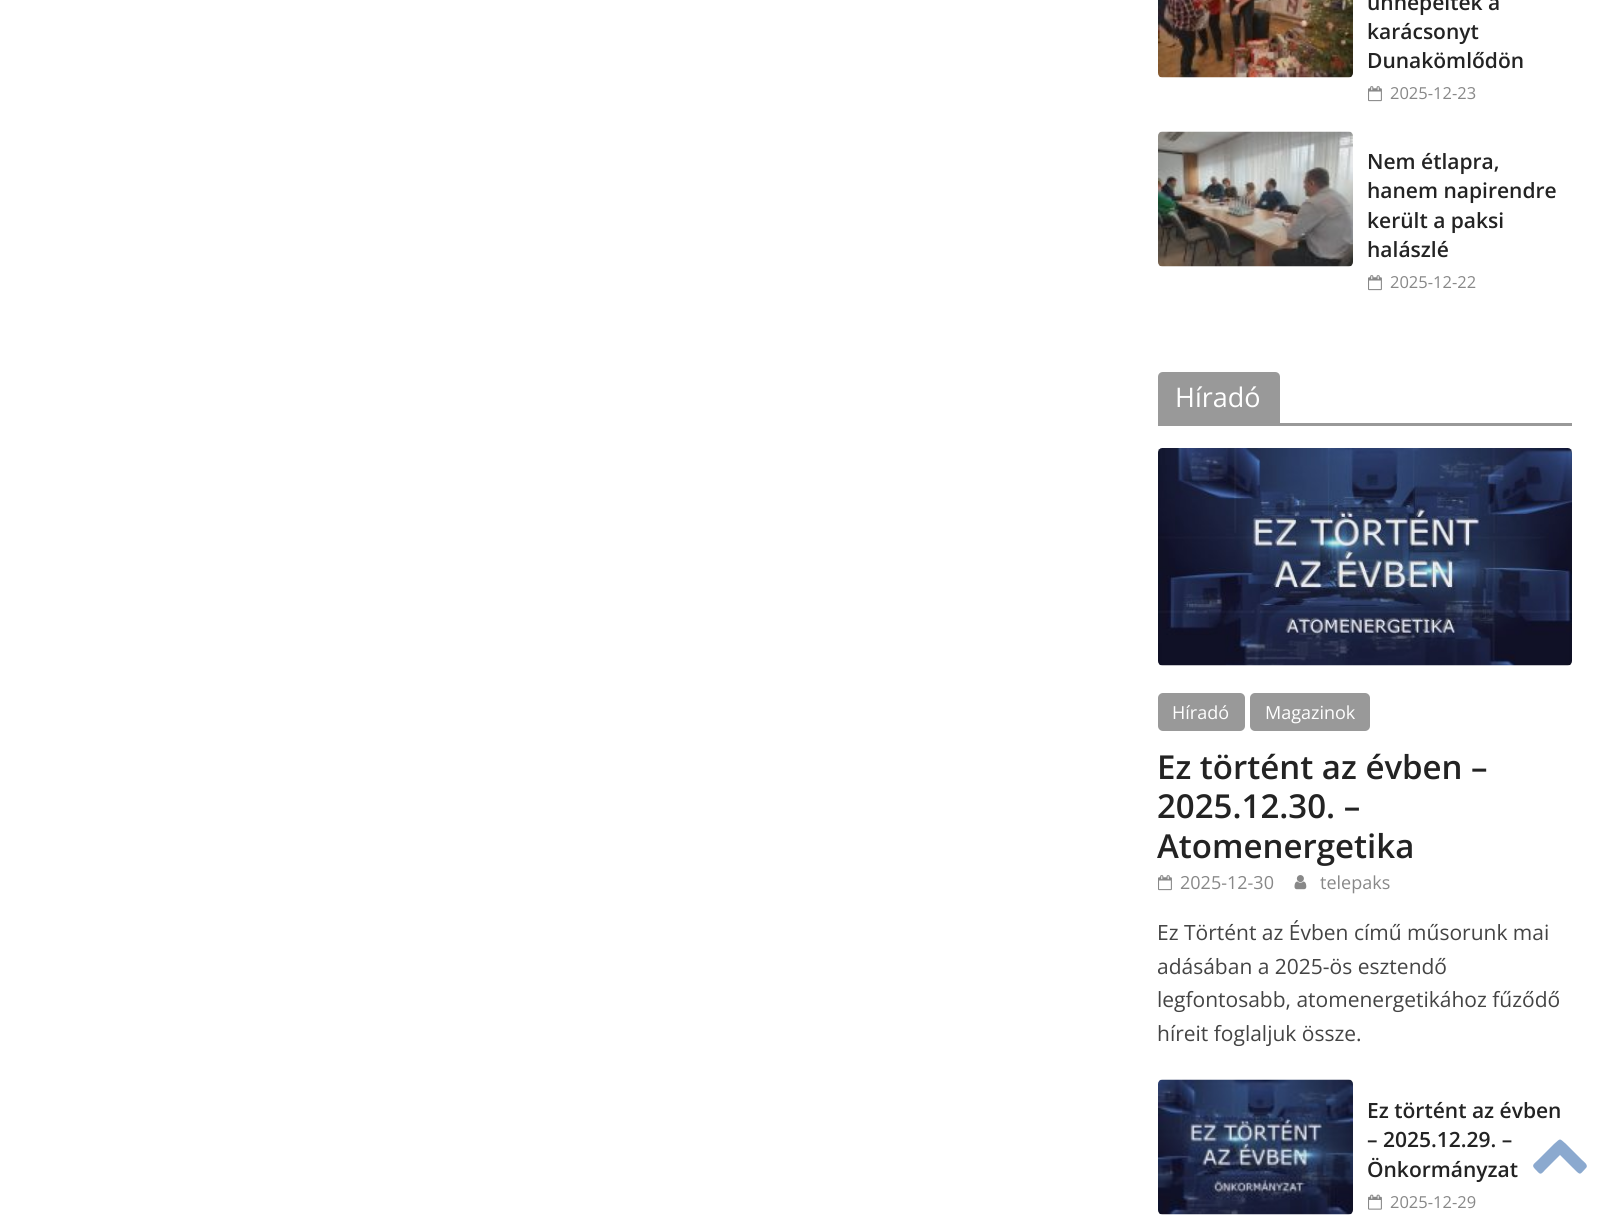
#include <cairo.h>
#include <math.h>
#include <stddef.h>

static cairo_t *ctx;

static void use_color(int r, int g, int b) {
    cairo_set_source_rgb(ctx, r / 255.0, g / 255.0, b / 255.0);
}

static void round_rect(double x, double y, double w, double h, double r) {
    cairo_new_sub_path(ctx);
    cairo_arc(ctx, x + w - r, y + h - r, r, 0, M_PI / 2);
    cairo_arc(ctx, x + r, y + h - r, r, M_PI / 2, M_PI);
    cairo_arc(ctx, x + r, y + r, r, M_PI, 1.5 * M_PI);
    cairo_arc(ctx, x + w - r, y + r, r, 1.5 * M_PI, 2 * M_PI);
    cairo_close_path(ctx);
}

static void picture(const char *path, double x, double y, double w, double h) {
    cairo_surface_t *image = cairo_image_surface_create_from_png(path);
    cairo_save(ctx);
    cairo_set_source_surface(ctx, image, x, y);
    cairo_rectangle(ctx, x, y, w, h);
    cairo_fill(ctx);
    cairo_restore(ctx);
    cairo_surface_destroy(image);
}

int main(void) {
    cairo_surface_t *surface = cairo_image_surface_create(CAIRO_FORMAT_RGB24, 1620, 1216);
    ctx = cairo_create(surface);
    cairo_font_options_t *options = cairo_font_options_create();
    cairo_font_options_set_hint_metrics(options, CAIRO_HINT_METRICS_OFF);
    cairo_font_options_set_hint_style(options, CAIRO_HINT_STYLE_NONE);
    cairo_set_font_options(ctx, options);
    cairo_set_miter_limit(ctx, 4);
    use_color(255, 255, 255);
    cairo_paint(ctx);
    picture("img1.png", 1158, 0, 195, 78);
    cairo_select_font_face(ctx, "Open Sans SemiBold", CAIRO_FONT_SLANT_NORMAL, CAIRO_FONT_WEIGHT_NORMAL);
    cairo_set_font_size(ctx, 21);
    use_color(35, 35, 35);
    cairo_move_to(ctx, 1367, 10);
    cairo_show_text(ctx, "ünnepelték a");
    cairo_move_to(ctx, 1367, 39);
    cairo_show_text(ctx, "karácsonyt");
    cairo_move_to(ctx, 1367, 68);
    cairo_show_text(ctx, "Dunakömlődön");
    picture("img2.png", 1368, 86, 14, 16);
    cairo_select_font_face(ctx, "Open Sans", CAIRO_FONT_SLANT_NORMAL, CAIRO_FONT_WEIGHT_NORMAL);
    cairo_set_font_size(ctx, 16.5);
    use_color(136, 136, 136);
    cairo_move_to(ctx, 1390, 99);
    cairo_show_text(ctx, "2025-12-23");
    picture("img3.png", 1158, 131, 195, 136);
    cairo_select_font_face(ctx, "Open Sans SemiBold", CAIRO_FONT_SLANT_NORMAL, CAIRO_FONT_WEIGHT_NORMAL);
    cairo_set_font_size(ctx, 21);
    use_color(35, 35, 35);
    cairo_move_to(ctx, 1367, 169);
    cairo_show_text(ctx, "Nem étlapra,");
    cairo_move_to(ctx, 1367, 198);
    cairo_show_text(ctx, "hanem napirendre");
    cairo_move_to(ctx, 1367, 228);
    cairo_show_text(ctx, "került a paksi");
    cairo_move_to(ctx, 1367, 257);
    cairo_show_text(ctx, "halászlé");
    picture("img2.png", 1368, 275, 14, 16);
    cairo_select_font_face(ctx, "Open Sans", CAIRO_FONT_SLANT_NORMAL, CAIRO_FONT_WEIGHT_NORMAL);
    cairo_set_font_size(ctx, 16.5);
    use_color(136, 136, 136);
    cairo_move_to(ctx, 1390, 288);
    cairo_show_text(ctx, "2025-12-22");
    use_color(153, 153, 153);
    cairo_rectangle(ctx, 1158, 423, 414, 3);
    cairo_fill(ctx);
    cairo_new_path(ctx);
    cairo_move_to(ctx, 1163, 372);
    cairo_line_to(ctx, 1275, 372);
    cairo_curve_to(ctx, 1278, 372, 1280, 374, 1280, 377);
    cairo_line_to(ctx, 1280, 423);
    cairo_line_to(ctx, 1158, 423);
    cairo_line_to(ctx, 1158, 377);
    cairo_curve_to(ctx, 1158, 374, 1160, 372, 1163, 372);
    cairo_close_path(ctx);
    cairo_fill(ctx);
    cairo_set_font_size(ctx, 27);
    use_color(255, 255, 255);
    cairo_move_to(ctx, 1175, 407);
    cairo_show_text(ctx, "Híradó");
    picture("img4.png", 1158, 448, 414, 218);
    use_color(153, 153, 153);
    round_rect(1158, 693, 87, 38, 5);
    cairo_fill(ctx);
    cairo_set_font_size(ctx, 18);
    use_color(255, 255, 255);
    cairo_move_to(ctx, 1172, 719);
    cairo_show_text(ctx, "Híradó");
    use_color(153, 153, 153);
    round_rect(1250, 693, 120, 38, 5);
    cairo_fill(ctx);
    use_color(255, 255, 255);
    cairo_move_to(ctx, 1265, 719);
    cairo_show_text(ctx, "Magazinok");
    cairo_select_font_face(ctx, "Open Sans SemiBold", CAIRO_FONT_SLANT_NORMAL, CAIRO_FONT_WEIGHT_NORMAL);
    cairo_set_font_size(ctx, 33);
    use_color(35, 35, 35);
    cairo_move_to(ctx, 1157, 779);
    cairo_show_text(ctx, "Ez történt az évben –");
    cairo_move_to(ctx, 1157, 818);
    cairo_show_text(ctx, "2025.12.30. –");
    cairo_move_to(ctx, 1157, 858);
    cairo_show_text(ctx, "Atomenergetika");
    picture("img2.png", 1158, 875, 14, 16);
    cairo_select_font_face(ctx, "Open Sans", CAIRO_FONT_SLANT_NORMAL, CAIRO_FONT_WEIGHT_NORMAL);
    cairo_set_font_size(ctx, 18);
    use_color(136, 136, 136);
    cairo_move_to(ctx, 1180, 889);
    cairo_show_text(ctx, "2025-12-30");
    picture("img5.png", 1294, 875, 13, 15);
    cairo_move_to(ctx, 1320, 889);
    cairo_show_text(ctx, "telepaks");
    cairo_set_font_size(ctx, 21);
    use_color(68, 68, 68);
    cairo_move_to(ctx, 1157, 940);
    cairo_show_text(ctx, "Ez Történt az Évben című műsorunk mai");
    cairo_move_to(ctx, 1157, 974);
    cairo_show_text(ctx, "adásában a 2025-ös esztendő");
    cairo_move_to(ctx, 1157, 1007);
    cairo_show_text(ctx, "legfontosabb, atomenergetikához fűződő");
    cairo_move_to(ctx, 1157, 1041);
    cairo_show_text(ctx, "híreit foglaljuk össze.");
    picture("img6.png", 1158, 1079, 195, 136);
    cairo_select_font_face(ctx, "Open Sans SemiBold", CAIRO_FONT_SLANT_NORMAL, CAIRO_FONT_WEIGHT_NORMAL);
    use_color(35, 35, 35);
    cairo_move_to(ctx, 1367, 1118);
    cairo_show_text(ctx, "Ez történt az évben");
    cairo_move_to(ctx, 1367, 1147);
    cairo_show_text(ctx, "– 2025.12.29. –");
    cairo_move_to(ctx, 1367, 1177);
    cairo_show_text(ctx, "Önkormányzat");
    picture("img7.png", 1368, 1194, 14, 16);
    cairo_select_font_face(ctx, "Open Sans", CAIRO_FONT_SLANT_NORMAL, CAIRO_FONT_WEIGHT_NORMAL);
    cairo_set_font_size(ctx, 16.5);
    use_color(136, 136, 136);
    cairo_move_to(ctx, 1390, 1208);
    cairo_show_text(ctx, "2025-12-29");
    use_color(139, 169, 207);
    cairo_new_path(ctx);
    cairo_move_to(ctx, 1586, 1168);
    cairo_curve_to(ctx, 1580, 1174, 1581, 1176, 1575, 1170);
    cairo_line_to(ctx, 1560, 1155);
    cairo_line_to(ctx, 1545, 1170);
    cairo_curve_to(ctx, 1540, 1176, 1540, 1174, 1535, 1169);
    cairo_curve_to(ctx, 1531, 1165, 1534, 1164, 1538, 1160);
    cairo_line_to(ctx, 1554, 1144);
    cairo_curve_to(ctx, 1561, 1138, 1559, 1138, 1566, 1144);
    cairo_line_to(ctx, 1582, 1160);
    cairo_curve_to(ctx, 1583, 1161, 1589, 1165, 1586, 1168);
    cairo_close_path(ctx);
    cairo_fill(ctx);
    cairo_surface_write_to_png(surface, "result.png");
    cairo_font_options_destroy(options);
    cairo_destroy(ctx);
    cairo_surface_destroy(surface);
    return 0;
}
